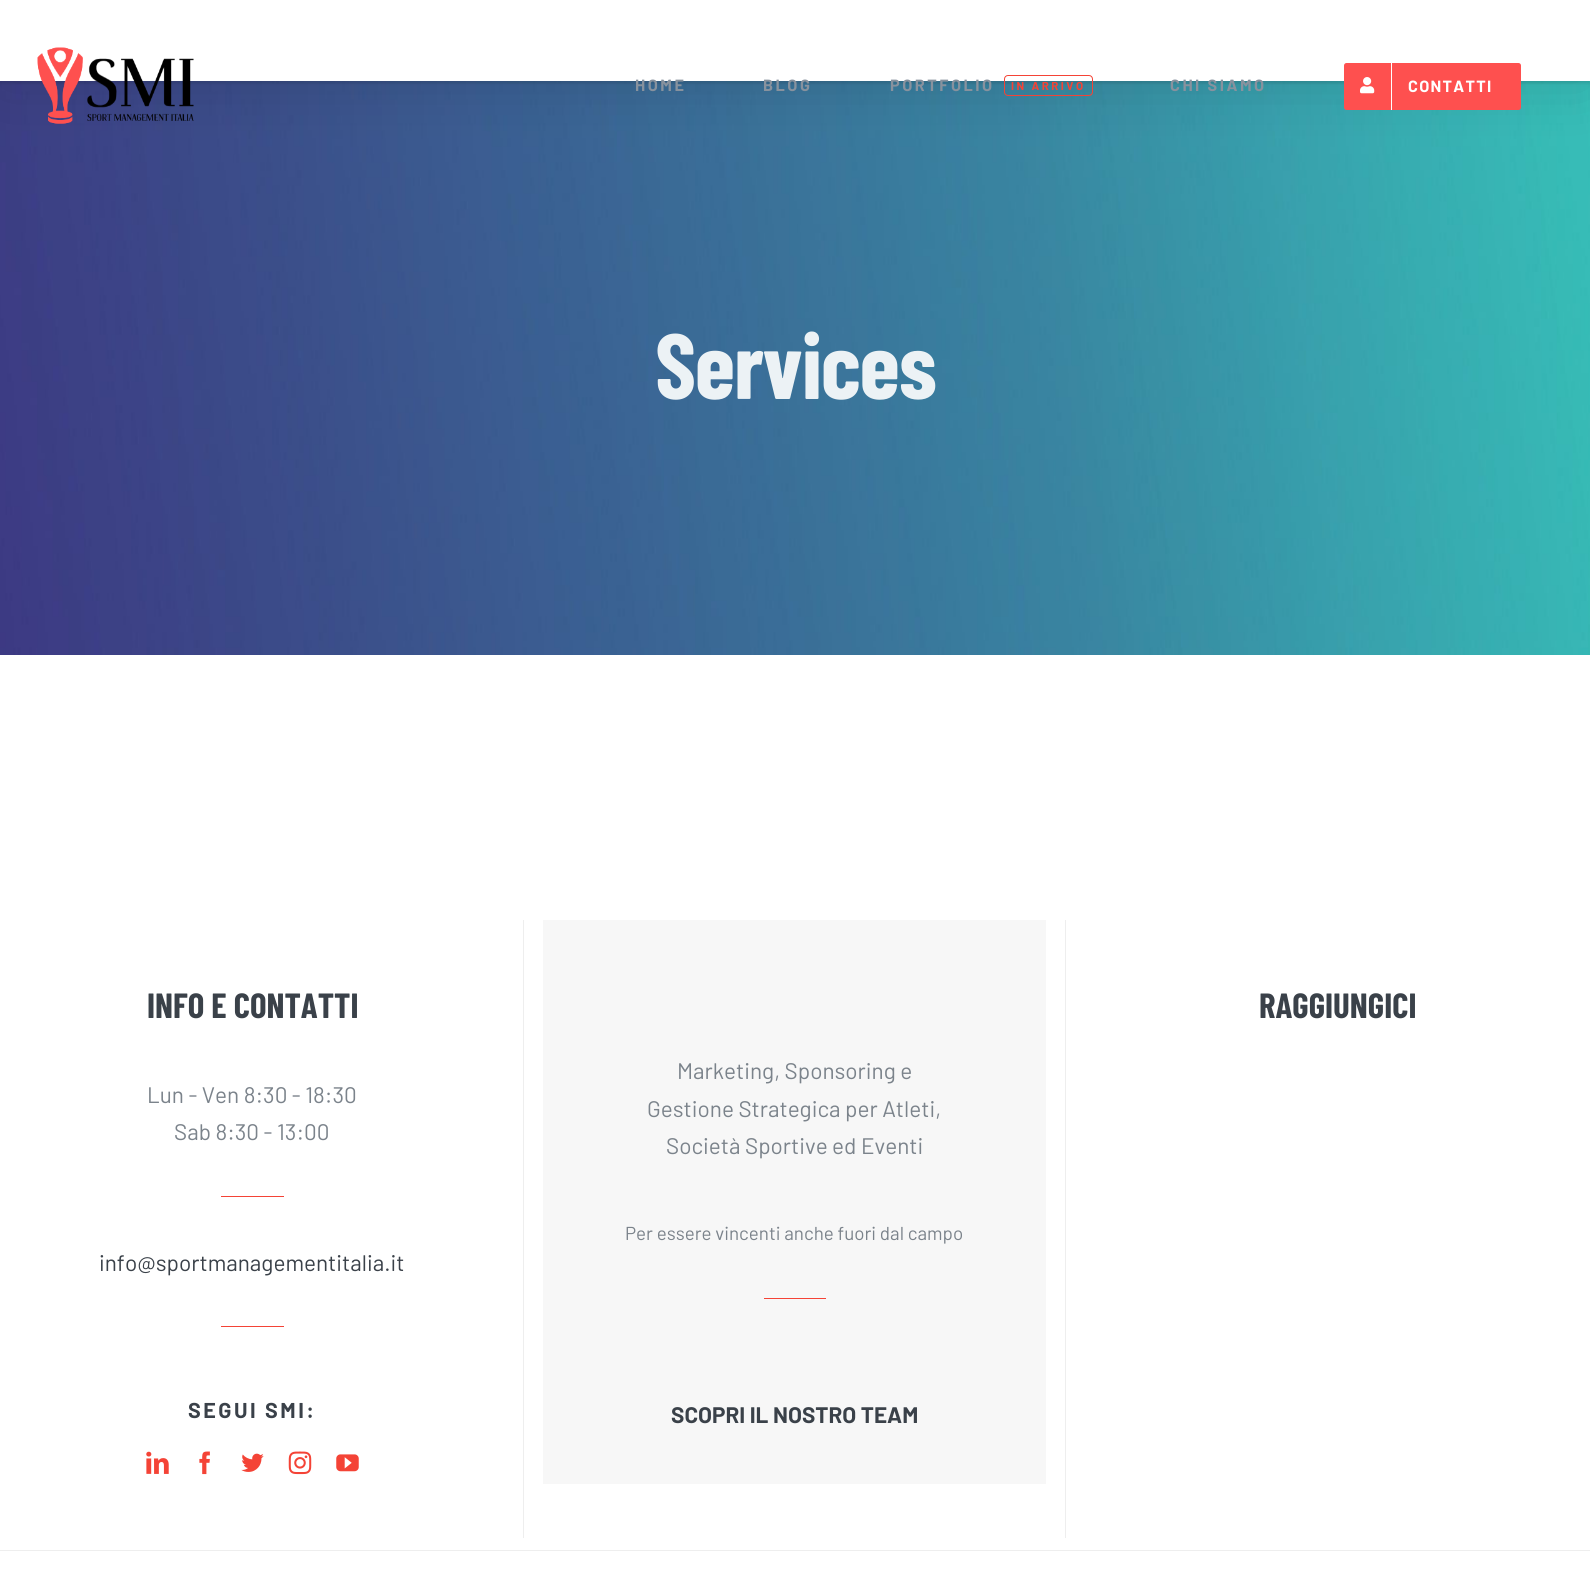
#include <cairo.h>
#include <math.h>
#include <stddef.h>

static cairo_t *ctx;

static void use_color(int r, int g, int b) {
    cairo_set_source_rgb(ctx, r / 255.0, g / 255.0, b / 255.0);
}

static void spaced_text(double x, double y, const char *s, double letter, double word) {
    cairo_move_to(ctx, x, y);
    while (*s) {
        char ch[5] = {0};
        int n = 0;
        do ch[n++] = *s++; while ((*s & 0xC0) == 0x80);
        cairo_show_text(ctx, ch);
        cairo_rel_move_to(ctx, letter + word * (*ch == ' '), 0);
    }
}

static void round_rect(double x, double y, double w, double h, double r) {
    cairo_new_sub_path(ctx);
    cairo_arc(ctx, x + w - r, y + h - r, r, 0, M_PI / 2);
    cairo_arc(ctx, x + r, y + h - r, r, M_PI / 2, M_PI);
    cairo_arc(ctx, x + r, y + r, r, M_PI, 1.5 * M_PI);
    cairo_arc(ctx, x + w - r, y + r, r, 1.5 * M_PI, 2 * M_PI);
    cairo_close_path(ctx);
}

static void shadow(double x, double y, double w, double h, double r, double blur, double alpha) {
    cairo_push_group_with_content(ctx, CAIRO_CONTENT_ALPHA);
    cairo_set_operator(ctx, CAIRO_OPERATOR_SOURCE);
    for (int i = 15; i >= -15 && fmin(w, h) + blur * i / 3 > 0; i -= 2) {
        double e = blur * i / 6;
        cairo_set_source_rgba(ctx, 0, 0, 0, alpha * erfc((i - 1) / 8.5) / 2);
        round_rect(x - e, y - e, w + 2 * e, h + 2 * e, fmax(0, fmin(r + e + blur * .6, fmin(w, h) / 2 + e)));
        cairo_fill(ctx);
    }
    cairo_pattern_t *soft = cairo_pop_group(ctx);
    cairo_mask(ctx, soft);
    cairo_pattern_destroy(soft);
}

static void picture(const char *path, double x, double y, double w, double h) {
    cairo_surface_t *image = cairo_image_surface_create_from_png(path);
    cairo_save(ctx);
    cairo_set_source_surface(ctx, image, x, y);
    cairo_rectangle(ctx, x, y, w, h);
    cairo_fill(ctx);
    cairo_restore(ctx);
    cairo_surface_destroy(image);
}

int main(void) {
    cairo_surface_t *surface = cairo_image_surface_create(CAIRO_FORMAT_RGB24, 1590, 1570);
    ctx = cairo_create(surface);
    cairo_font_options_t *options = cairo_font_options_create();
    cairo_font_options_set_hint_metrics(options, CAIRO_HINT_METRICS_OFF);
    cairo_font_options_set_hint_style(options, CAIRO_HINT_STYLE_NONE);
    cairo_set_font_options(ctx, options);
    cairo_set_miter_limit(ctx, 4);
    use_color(255, 255, 255);
    cairo_paint(ctx);
    picture("img3.png", 0, 81, 1590, 574);
    use_color(0, 0, 0);
    shadow(3, 3, 1585, 76, 0, 31, 0.14);
    shadow(0, 1, 1590, 82, 0, 2, 0.12);
    use_color(255, 255, 255);
    cairo_rectangle(ctx, 0, 0, 1590, 81);
    cairo_fill(ctx);
    picture("img1.png", 37, 47, 157, 77);
    cairo_select_font_face(ctx, "Barlow", CAIRO_FONT_SLANT_NORMAL, CAIRO_FONT_WEIGHT_BOLD);
    cairo_set_font_size(ctx, 16.25);
    use_color(136, 146, 158);
    spaced_text(635, 91, "HOME", 2.5, 0);
    spaced_text(763, 91, "BLOG", 2.5, 0);
    spaced_text(890, 91, "PORTFOLIO", 2.5, 0);
    round_rect(1004.5, 75.5, 88, 20, 3.5);
    use_color(244, 67, 54);
    cairo_set_line_width(ctx, 1);
    cairo_stroke(ctx);
    cairo_set_font_size(ctx, 11.5);
    spaced_text(1011, 90, "IN ARRIVO", 2.5, 0);
    cairo_set_font_size(ctx, 16.25);
    use_color(136, 146, 158);
    spaced_text(1170, 91, "CHI SIAMO", 2.5, 0);
    use_color(254, 80, 79);
    round_rect(1344, 63, 177, 47, 2.5);
    cairo_fill(ctx);
    use_color(255, 255, 255);
    cairo_rectangle(ctx, 1391, 63, 1, 47);
    cairo_fill(ctx);
    picture("img2.png", 1360, 77, 15, 17);
    spaced_text(1408, 92, "CONTATTI", 1.25, 0);
    cairo_select_font_face(ctx, "Barlow Condensed", CAIRO_FONT_SLANT_NORMAL, CAIRO_FONT_WEIGHT_BOLD);
    cairo_set_font_size(ctx, 92.5);
    use_color(236, 242, 245);
    spaced_text(655, 399, "Services", -1.25, 0);
    use_color(238, 238, 238);
    cairo_rectangle(ctx, 523, 920, 1, 618);
    cairo_fill(ctx);
    cairo_set_font_size(ctx, 35);
    use_color(58, 65, 73);
    cairo_move_to(ctx, 147, 1018);
    cairo_show_text(ctx, "INFO E CONTATTI");
    cairo_select_font_face(ctx, "Barlow", CAIRO_FONT_SLANT_NORMAL, CAIRO_FONT_WEIGHT_NORMAL);
    cairo_set_font_size(ctx, 22.5);
    use_color(123, 131, 139);
    cairo_move_to(ctx, 147, 1103);
    cairo_show_text(ctx, "Lun - Ven 8:30 - 18:30");
    cairo_move_to(ctx, 174, 1140);
    cairo_show_text(ctx, "Sab 8:30 - 13:00");
    use_color(244, 67, 54);
    cairo_rectangle(ctx, 221, 1196, 63, 1);
    cairo_fill(ctx);
    use_color(58, 65, 73);
    cairo_move_to(ctx, 99, 1271);
    cairo_show_text(ctx, "info@sportmanagementitalia.it");
    use_color(244, 67, 54);
    cairo_rectangle(ctx, 221, 1326, 63, 1);
    cairo_fill(ctx);
    cairo_select_font_face(ctx, "Barlow", CAIRO_FONT_SLANT_NORMAL, CAIRO_FONT_WEIGHT_BOLD);
    cairo_set_font_size(ctx, 21.5);
    use_color(58, 65, 73);
    spaced_text(188, 1418, "SEGUI SMI:", 2.5, 0);
    picture("img4.png", 146, 1451, 23, 23);
    picture("img5.png", 199, 1451, 11, 24);
    picture("img6.png", 241, 1453, 23, 19);
    picture("img7.png", 288, 1451, 24, 24);
    picture("img8.png", 336, 1454, 23, 18);
    cairo_select_font_face(ctx, "Barlow Condensed", CAIRO_FONT_SLANT_NORMAL, CAIRO_FONT_WEIGHT_BOLD);
    cairo_set_font_size(ctx, 35);
    cairo_move_to(ctx, 1259, 1018);
    cairo_show_text(ctx, "RAGGIUNGICI");
    use_color(238, 238, 238);
    cairo_rectangle(ctx, 1065, 920, 1, 618);
    cairo_fill(ctx);
    use_color(247, 247, 247);
    cairo_rectangle(ctx, 543, 920, 503, 564);
    cairo_fill(ctx);
    cairo_select_font_face(ctx, "Barlow", CAIRO_FONT_SLANT_NORMAL, CAIRO_FONT_WEIGHT_NORMAL);
    cairo_set_font_size(ctx, 22.5);
    use_color(123, 131, 139);
    cairo_move_to(ctx, 677, 1079);
    cairo_show_text(ctx, "Marketing, Sponsoring e");
    cairo_move_to(ctx, 647, 1117);
    cairo_show_text(ctx, "Gestione Strategica per Atleti,");
    cairo_move_to(ctx, 666, 1154);
    cairo_show_text(ctx, "Società Sportive ed Eventi");
    cairo_set_font_size(ctx, 18.75);
    cairo_move_to(ctx, 625, 1240);
    cairo_show_text(ctx, "Per essere vincenti anche fuori dal campo");
    use_color(244, 67, 54);
    cairo_rectangle(ctx, 764, 1298, 62, 1);
    cairo_fill(ctx);
    cairo_select_font_face(ctx, "Barlow", CAIRO_FONT_SLANT_NORMAL, CAIRO_FONT_WEIGHT_BOLD);
    cairo_set_font_size(ctx, 22.5);
    use_color(58, 65, 73);
    cairo_move_to(ctx, 671, 1423);
    cairo_show_text(ctx, "SCOPRI IL NOSTRO TEAM");
    use_color(238, 238, 238);
    cairo_rectangle(ctx, 0, 1550, 1590, 1);
    cairo_fill(ctx);
    cairo_surface_write_to_png(surface, "result.png");
    cairo_font_options_destroy(options);
    cairo_destroy(ctx);
    cairo_surface_destroy(surface);
    return 0;
}
